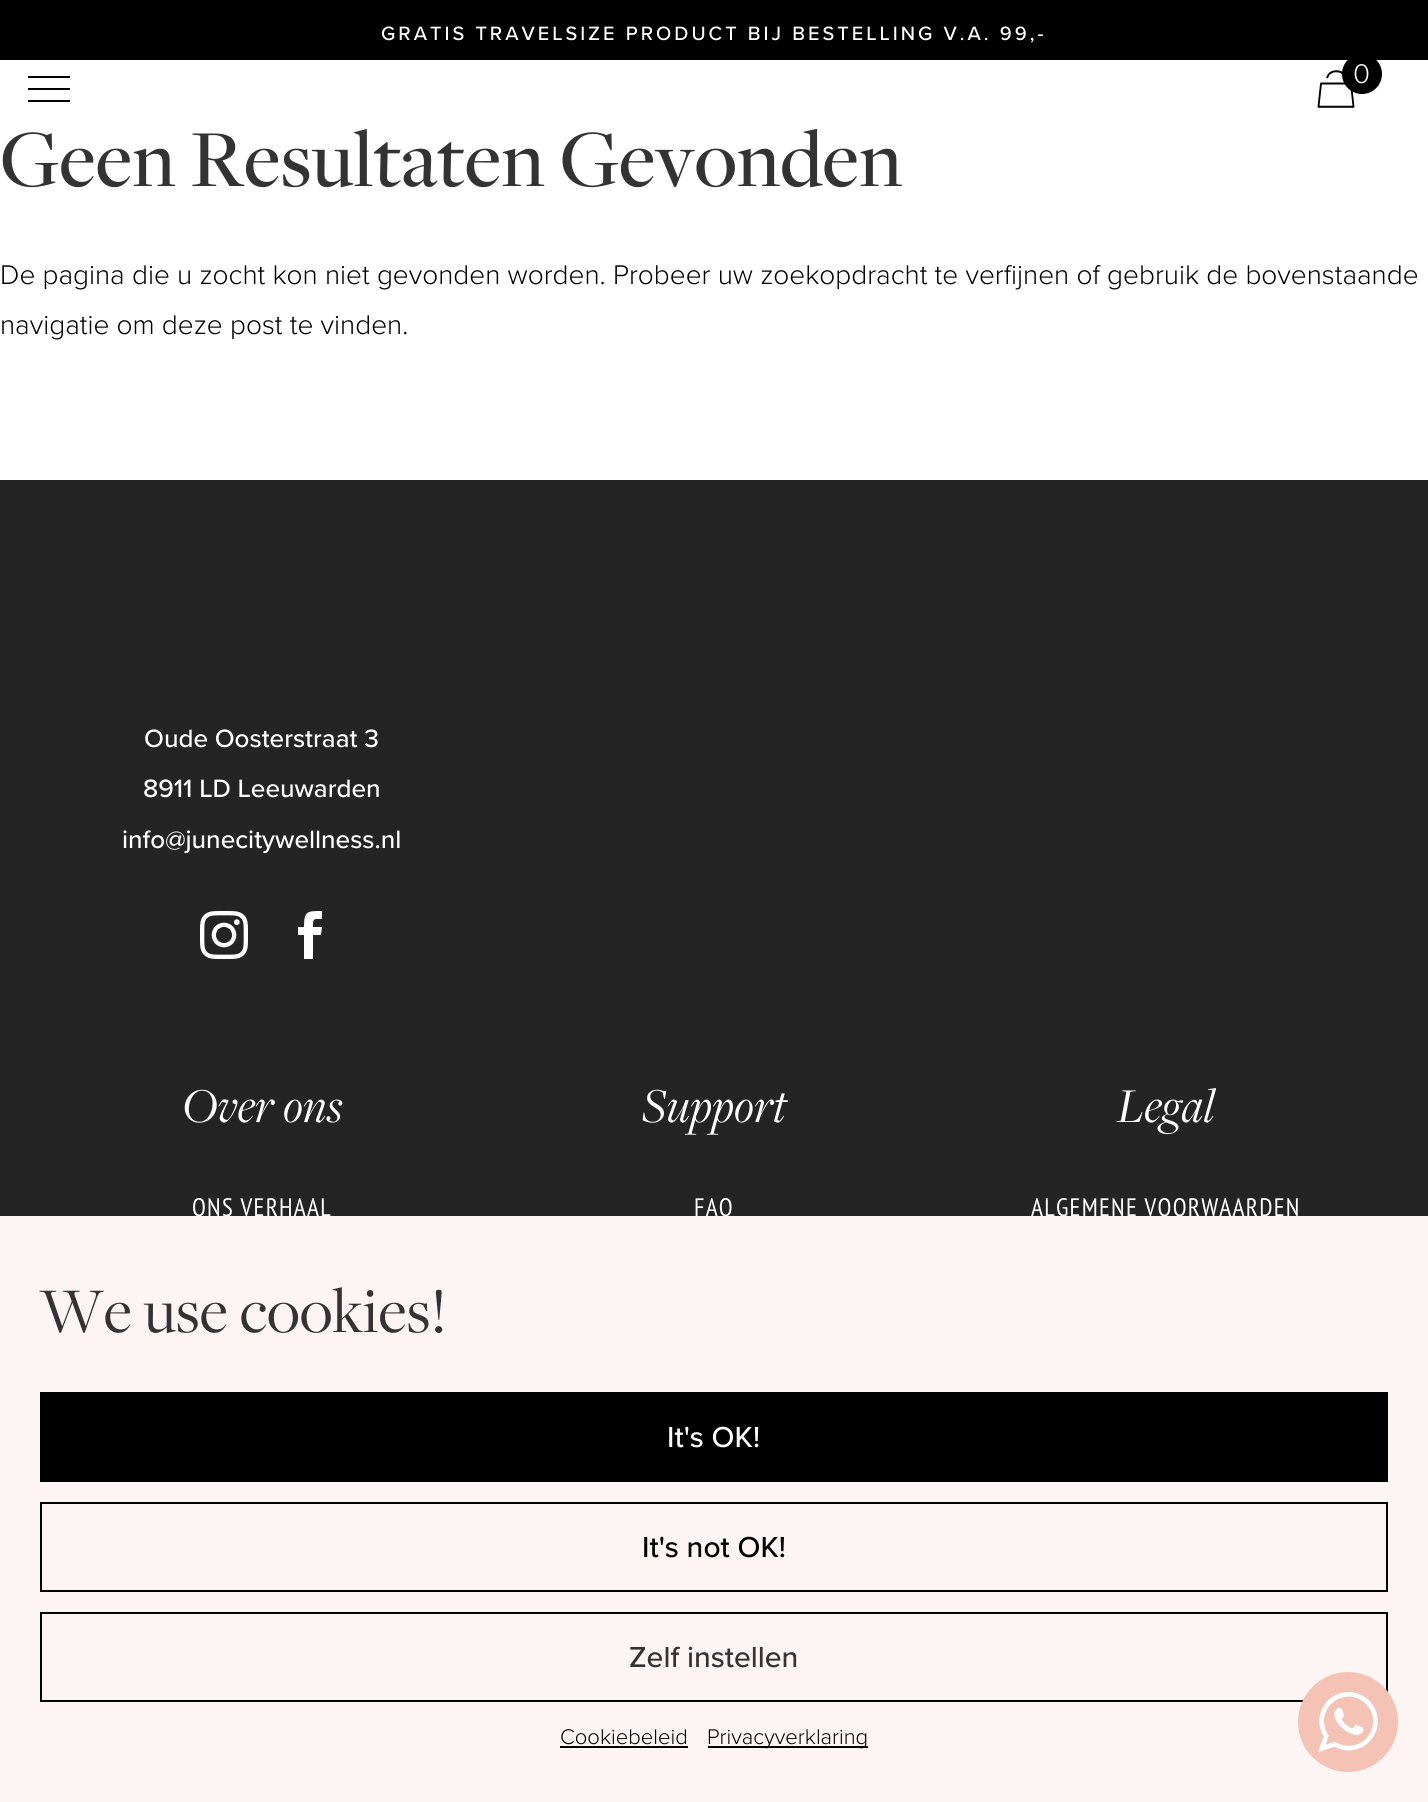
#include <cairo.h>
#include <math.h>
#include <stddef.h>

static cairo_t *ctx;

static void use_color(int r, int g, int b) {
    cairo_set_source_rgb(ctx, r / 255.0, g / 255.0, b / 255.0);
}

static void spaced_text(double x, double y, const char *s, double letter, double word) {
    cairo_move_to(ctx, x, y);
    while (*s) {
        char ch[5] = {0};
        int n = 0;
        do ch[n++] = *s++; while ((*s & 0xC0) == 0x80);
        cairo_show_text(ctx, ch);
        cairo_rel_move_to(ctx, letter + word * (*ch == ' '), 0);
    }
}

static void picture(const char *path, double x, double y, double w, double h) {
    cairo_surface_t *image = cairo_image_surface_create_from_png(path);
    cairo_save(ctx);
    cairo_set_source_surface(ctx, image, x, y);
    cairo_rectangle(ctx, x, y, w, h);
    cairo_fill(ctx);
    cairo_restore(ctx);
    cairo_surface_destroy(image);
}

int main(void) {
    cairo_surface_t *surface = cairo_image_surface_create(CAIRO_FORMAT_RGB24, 1428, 1802);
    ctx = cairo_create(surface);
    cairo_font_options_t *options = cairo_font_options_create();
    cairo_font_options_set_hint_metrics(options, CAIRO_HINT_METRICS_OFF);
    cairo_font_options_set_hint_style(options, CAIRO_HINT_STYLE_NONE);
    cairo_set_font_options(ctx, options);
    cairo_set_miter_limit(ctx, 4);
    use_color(255, 255, 255);
    cairo_paint(ctx);
    use_color(0, 0, 0);
    cairo_rectangle(ctx, 0, 0, 1428, 60);
    cairo_fill(ctx);
    cairo_select_font_face(ctx, "Proxima Nova Medium", CAIRO_FONT_SLANT_NORMAL, CAIRO_FONT_WEIGHT_NORMAL);
    cairo_set_font_size(ctx, 20);
    use_color(255, 255, 255);
    spaced_text(381, 40, "GRATIS TRAVELSIZE PRODUCT BIJ BESTELLING V.A. 99,-", 3, 0);
    picture("img1.png", 1317, 70, 38, 38);
    use_color(0, 0, 0);
    cairo_arc(ctx, 1362, 74, 20, 0, 2 * M_PI);
    cairo_fill(ctx);
    cairo_select_font_face(ctx, "Proxima Nova Light", CAIRO_FONT_SLANT_NORMAL, CAIRO_FONT_WEIGHT_NORMAL);
    cairo_set_font_size(ctx, 28);
    use_color(255, 255, 255);
    cairo_move_to(ctx, 1353, 83);
    cairo_show_text(ctx, "0");
    use_color(0, 0, 0);
    cairo_rectangle(ctx, 28, 76, 42, 2);
    cairo_fill(ctx);
    cairo_rectangle(ctx, 28, 88, 42, 2);
    cairo_fill(ctx);
    cairo_rectangle(ctx, 28, 100, 42, 2);
    cairo_fill(ctx);
    cairo_select_font_face(ctx, "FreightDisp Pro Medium", CAIRO_FONT_SLANT_NORMAL, CAIRO_FONT_WEIGHT_NORMAL);
    cairo_set_font_size(ctx, 84);
    use_color(51, 51, 51);
    cairo_move_to(ctx, 0, 186);
    cairo_show_text(ctx, "Geen Resultaten Gevonden");
    cairo_select_font_face(ctx, "Proxima Nova Light", CAIRO_FONT_SLANT_NORMAL, CAIRO_FONT_WEIGHT_NORMAL);
    cairo_set_font_size(ctx, 28);
    use_color(0, 0, 0);
    cairo_move_to(ctx, 0, 284);
    cairo_show_text(ctx, "De pagina die u zocht kon niet gevonden worden. Probeer uw zoekopdracht te verfijnen of gebruik de bovenstaande");
    cairo_move_to(ctx, 0, 334);
    cairo_show_text(ctx, "navigatie om deze post te vinden.");
    use_color(36, 36, 36);
    cairo_rectangle(ctx, 0, 480, 1428, 736);
    cairo_fill(ctx);
    cairo_select_font_face(ctx, "Proxima Nova Medium", CAIRO_FONT_SLANT_NORMAL, CAIRO_FONT_WEIGHT_NORMAL);
    cairo_set_font_size(ctx, 26);
    use_color(255, 255, 255);
    cairo_move_to(ctx, 144, 747);
    cairo_show_text(ctx, "Oude Oosterstraat 3");
    cairo_move_to(ctx, 143, 797);
    cairo_show_text(ctx, "8911 LD Leeuwarden");
    cairo_move_to(ctx, 122, 848);
    cairo_show_text(ctx, "info@junecitywellness.nl");
    picture("img2.png", 200, 911, 48, 48);
    cairo_new_path(ctx);
    cairo_move_to(ctx, 304, 959);
    cairo_line_to(ctx, 313, 959);
    cairo_line_to(ctx, 313, 935);
    cairo_line_to(ctx, 321, 935);
    cairo_line_to(ctx, 322, 927);
    cairo_line_to(ctx, 313, 927);
    cairo_curve_to(ctx, 313, 918, 313, 919, 322, 919);
    cairo_line_to(ctx, 322, 911);
    cairo_curve_to(ctx, 307, 911, 304, 911, 304, 927);
    cairo_line_to(ctx, 298, 927);
    cairo_line_to(ctx, 298, 935);
    cairo_line_to(ctx, 304, 935);
    cairo_close_path(ctx);
    cairo_fill(ctx);
    cairo_select_font_face(ctx, "FreightDisp Pro", CAIRO_FONT_SLANT_ITALIC, CAIRO_FONT_WEIGHT_NORMAL);
    cairo_set_font_size(ctx, 50.5);
    cairo_move_to(ctx, 182, 1122);
    cairo_show_text(ctx, "Over ons");
    cairo_select_font_face(ctx, "PT Sans Narrow", CAIRO_FONT_SLANT_NORMAL, CAIRO_FONT_WEIGHT_NORMAL);
    cairo_set_font_size(ctx, 25.25);
    spaced_text(192, 1216, "ONS VERHAAL", 1.25, 0);
    cairo_select_font_face(ctx, "FreightDisp Pro", CAIRO_FONT_SLANT_ITALIC, CAIRO_FONT_WEIGHT_NORMAL);
    cairo_set_font_size(ctx, 50.5);
    cairo_move_to(ctx, 642, 1122);
    cairo_show_text(ctx, "Support");
    cairo_select_font_face(ctx, "PT Sans Narrow", CAIRO_FONT_SLANT_NORMAL, CAIRO_FONT_WEIGHT_NORMAL);
    cairo_set_font_size(ctx, 25.25);
    spaced_text(694, 1216, "FAQ", 1.25, 0);
    cairo_select_font_face(ctx, "FreightDisp Pro", CAIRO_FONT_SLANT_ITALIC, CAIRO_FONT_WEIGHT_NORMAL);
    cairo_set_font_size(ctx, 50.5);
    cairo_move_to(ctx, 1117, 1122);
    cairo_show_text(ctx, "Legal");
    cairo_select_font_face(ctx, "PT Sans Narrow", CAIRO_FONT_SLANT_NORMAL, CAIRO_FONT_WEIGHT_NORMAL);
    cairo_set_font_size(ctx, 25.25);
    spaced_text(1031, 1216, "ALGEMENE VOORWAARDEN", 1.25, 0);
    use_color(253, 245, 243);
    cairo_rectangle(ctx, 0, 1216, 1428, 586);
    cairo_fill(ctx);
    cairo_select_font_face(ctx, "FreightDisp Pro", CAIRO_FONT_SLANT_NORMAL, CAIRO_FONT_WEIGHT_NORMAL);
    cairo_set_font_size(ctx, 66);
    use_color(51, 51, 51);
    cairo_move_to(ctx, 40, 1332);
    cairo_show_text(ctx, "We use cookies!");
    use_color(0, 0, 0);
    cairo_rectangle(ctx, 40, 1392, 1348, 90);
    cairo_fill(ctx);
    cairo_select_font_face(ctx, "Proxima Nova Medium", CAIRO_FONT_SLANT_NORMAL, CAIRO_FONT_WEIGHT_NORMAL);
    cairo_set_font_size(ctx, 30);
    use_color(255, 255, 255);
    cairo_move_to(ctx, 667, 1447);
    cairo_show_text(ctx, "It's OK!");
    cairo_rectangle(ctx, 41, 1503, 1346, 88);
    use_color(0, 0, 0);
    cairo_stroke(ctx);
    cairo_move_to(ctx, 642, 1557);
    cairo_show_text(ctx, "It's not OK!");
    cairo_rectangle(ctx, 41, 1613, 1346, 88);
    cairo_stroke(ctx);
    use_color(51, 51, 51);
    cairo_move_to(ctx, 629, 1667);
    cairo_show_text(ctx, "Zelf instellen");
    cairo_select_font_face(ctx, "Proxima Nova Light", CAIRO_FONT_SLANT_NORMAL, CAIRO_FONT_WEIGHT_NORMAL);
    cairo_set_font_size(ctx, 22);
    use_color(0, 0, 0);
    cairo_move_to(ctx, 560, 1744);
    cairo_show_text(ctx, "Cookiebeleid");
    cairo_rectangle(ctx, 560, 1746, 128, 2);
    cairo_fill(ctx);
    cairo_rectangle(ctx, 708, 1746, 160, 2);
    cairo_fill(ctx);
    cairo_move_to(ctx, 707, 1744);
    cairo_show_text(ctx, "Privacyverklaring");
    use_color(245, 195, 181);
    cairo_new_path(ctx);
    cairo_arc(ctx, 1348, 1722, 50, 0, 2 * M_PI);
    cairo_fill(ctx);
    picture("img3.png", 1318, 1692, 60, 60);
    cairo_surface_write_to_png(surface, "result.png");
    cairo_font_options_destroy(options);
    cairo_destroy(ctx);
    cairo_surface_destroy(surface);
    return 0;
}
